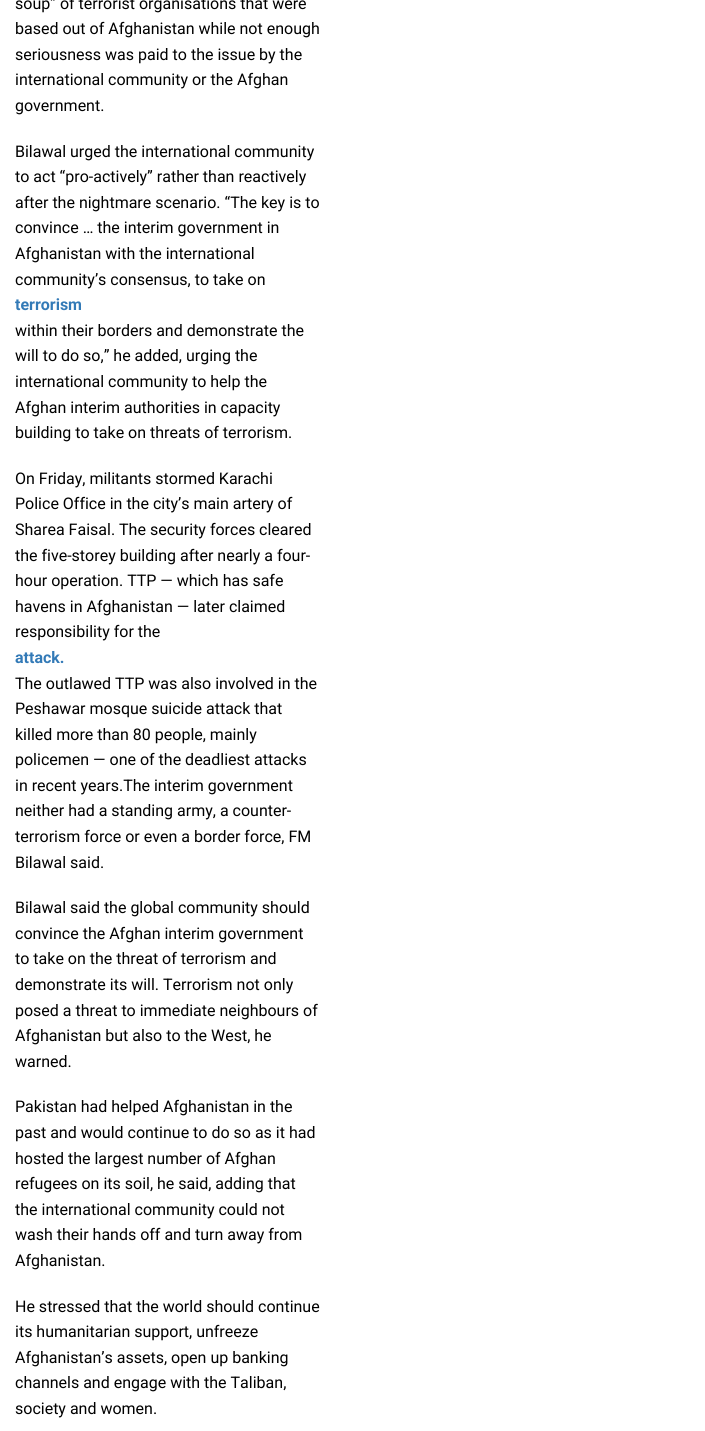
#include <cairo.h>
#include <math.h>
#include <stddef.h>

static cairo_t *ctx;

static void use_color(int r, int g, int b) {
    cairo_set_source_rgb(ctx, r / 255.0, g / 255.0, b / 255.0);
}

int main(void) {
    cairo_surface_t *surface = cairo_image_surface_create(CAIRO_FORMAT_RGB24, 705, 1431);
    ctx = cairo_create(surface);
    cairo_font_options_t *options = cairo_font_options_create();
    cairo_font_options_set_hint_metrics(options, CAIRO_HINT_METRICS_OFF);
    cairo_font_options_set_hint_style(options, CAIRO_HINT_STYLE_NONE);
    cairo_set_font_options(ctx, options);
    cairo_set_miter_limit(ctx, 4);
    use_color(255, 255, 255);
    cairo_paint(ctx);
    cairo_select_font_face(ctx, "Roboto", CAIRO_FONT_SLANT_NORMAL, CAIRO_FONT_WEIGHT_NORMAL);
    cairo_set_font_size(ctx, 16);
    use_color(0, 0, 0);
    cairo_move_to(ctx, 15, 9);
    cairo_show_text(ctx, "soup” of terrorist organisations that were");
    cairo_move_to(ctx, 15, 34);
    cairo_show_text(ctx, "based out of Afghanistan while not enough");
    cairo_move_to(ctx, 15, 60);
    cairo_show_text(ctx, "seriousness was paid to the issue by the");
    cairo_move_to(ctx, 15, 85);
    cairo_show_text(ctx, "international community or the Afghan");
    cairo_move_to(ctx, 15, 111);
    cairo_show_text(ctx, "government.");
    cairo_move_to(ctx, 15, 157);
    cairo_show_text(ctx, "Bilawal urged the international community");
    cairo_move_to(ctx, 15, 182);
    cairo_show_text(ctx, "to act “pro-actively” rather than reactively");
    cairo_move_to(ctx, 15, 208);
    cairo_show_text(ctx, "after the nightmare scenario. “The key is to");
    cairo_move_to(ctx, 15, 233);
    cairo_show_text(ctx, "convince … the interim government in");
    cairo_move_to(ctx, 15, 259);
    cairo_show_text(ctx, "Afghanistan with the international");
    cairo_move_to(ctx, 15, 285);
    cairo_show_text(ctx, "community’s consensus, to take on");
    cairo_select_font_face(ctx, "Roboto", CAIRO_FONT_SLANT_NORMAL, CAIRO_FONT_WEIGHT_BOLD);
    use_color(51, 122, 183);
    cairo_move_to(ctx, 15, 310);
    cairo_show_text(ctx, "terrorism");
    cairo_select_font_face(ctx, "Roboto", CAIRO_FONT_SLANT_NORMAL, CAIRO_FONT_WEIGHT_NORMAL);
    use_color(0, 0, 0);
    cairo_move_to(ctx, 15, 336);
    cairo_show_text(ctx, "within their borders and demonstrate the");
    cairo_move_to(ctx, 15, 361);
    cairo_show_text(ctx, "will to do so,” he added, urging the");
    cairo_move_to(ctx, 15, 387);
    cairo_show_text(ctx, "international community to help the");
    cairo_move_to(ctx, 15, 413);
    cairo_show_text(ctx, "Afghan interim authorities in capacity");
    cairo_move_to(ctx, 15, 438);
    cairo_show_text(ctx, "building to take on threats of terrorism.");
    cairo_move_to(ctx, 15, 484);
    cairo_show_text(ctx, "On Friday, militants stormed Karachi");
    cairo_move_to(ctx, 15, 509);
    cairo_show_text(ctx, "Police Office in the city’s main artery of");
    cairo_move_to(ctx, 15, 535);
    cairo_show_text(ctx, "Sharea Faisal. The security forces cleared");
    cairo_move_to(ctx, 15, 561);
    cairo_show_text(ctx, "the five-storey building after nearly a four-");
    cairo_move_to(ctx, 15, 586);
    cairo_show_text(ctx, "hour operation. TTP — which has safe");
    cairo_move_to(ctx, 15, 612);
    cairo_show_text(ctx, "havens in Afghanistan — later claimed");
    cairo_move_to(ctx, 15, 637);
    cairo_show_text(ctx, "responsibility for the");
    cairo_select_font_face(ctx, "Roboto", CAIRO_FONT_SLANT_NORMAL, CAIRO_FONT_WEIGHT_BOLD);
    use_color(51, 122, 183);
    cairo_move_to(ctx, 15, 663);
    cairo_show_text(ctx, "attack.");
    cairo_select_font_face(ctx, "Roboto", CAIRO_FONT_SLANT_NORMAL, CAIRO_FONT_WEIGHT_NORMAL);
    use_color(0, 0, 0);
    cairo_move_to(ctx, 15, 689);
    cairo_show_text(ctx, "The outlawed TTP was also involved in the");
    cairo_move_to(ctx, 15, 714);
    cairo_show_text(ctx, "Peshawar mosque suicide attack that");
    cairo_move_to(ctx, 15, 740);
    cairo_show_text(ctx, "killed more than 80 people, mainly");
    cairo_move_to(ctx, 15, 765);
    cairo_show_text(ctx, "policemen — one of the deadliest attacks");
    cairo_move_to(ctx, 15, 791);
    cairo_show_text(ctx, "in recent years.The interim government");
    cairo_move_to(ctx, 15, 816);
    cairo_show_text(ctx, "neither had a standing army, a counter-");
    cairo_move_to(ctx, 15, 842);
    cairo_show_text(ctx, "terrorism force or even a border force, FM");
    cairo_move_to(ctx, 15, 868);
    cairo_show_text(ctx, "Bilawal said.");
    cairo_move_to(ctx, 15, 913);
    cairo_show_text(ctx, "Bilawal said the global community should");
    cairo_move_to(ctx, 15, 939);
    cairo_show_text(ctx, "convince the Afghan interim government");
    cairo_move_to(ctx, 15, 964);
    cairo_show_text(ctx, "to take on the threat of terrorism and");
    cairo_move_to(ctx, 15, 990);
    cairo_show_text(ctx, "demonstrate its will. Terrorism not only");
    cairo_move_to(ctx, 15, 1016);
    cairo_show_text(ctx, "posed a threat to immediate neighbours of");
    cairo_move_to(ctx, 15, 1041);
    cairo_show_text(ctx, "Afghanistan but also to the West, he");
    cairo_move_to(ctx, 15, 1067);
    cairo_show_text(ctx, "warned.");
    cairo_move_to(ctx, 15, 1112);
    cairo_show_text(ctx, "Pakistan had helped Afghanistan in the");
    cairo_move_to(ctx, 15, 1138);
    cairo_show_text(ctx, "past and would continue to do so as it had");
    cairo_move_to(ctx, 15, 1164);
    cairo_show_text(ctx, "hosted the largest number of Afghan");
    cairo_move_to(ctx, 15, 1189);
    cairo_show_text(ctx, "refugees on its soil, he said, adding that");
    cairo_move_to(ctx, 15, 1215);
    cairo_show_text(ctx, "the international community could not");
    cairo_move_to(ctx, 15, 1240);
    cairo_show_text(ctx, "wash their hands off and turn away from");
    cairo_move_to(ctx, 15, 1266);
    cairo_show_text(ctx, "Afghanistan.");
    cairo_move_to(ctx, 15, 1312);
    cairo_show_text(ctx, "He stressed that the world should continue");
    cairo_move_to(ctx, 15, 1337);
    cairo_show_text(ctx, "its humanitarian support, unfreeze");
    cairo_move_to(ctx, 15, 1363);
    cairo_show_text(ctx, "Afghanistan’s assets, open up banking");
    cairo_move_to(ctx, 15, 1388);
    cairo_show_text(ctx, "channels and engage with the Taliban,");
    cairo_move_to(ctx, 15, 1414);
    cairo_show_text(ctx, "society and women.");
    cairo_surface_write_to_png(surface, "result.png");
    cairo_font_options_destroy(options);
    cairo_destroy(ctx);
    cairo_surface_destroy(surface);
    return 0;
}
